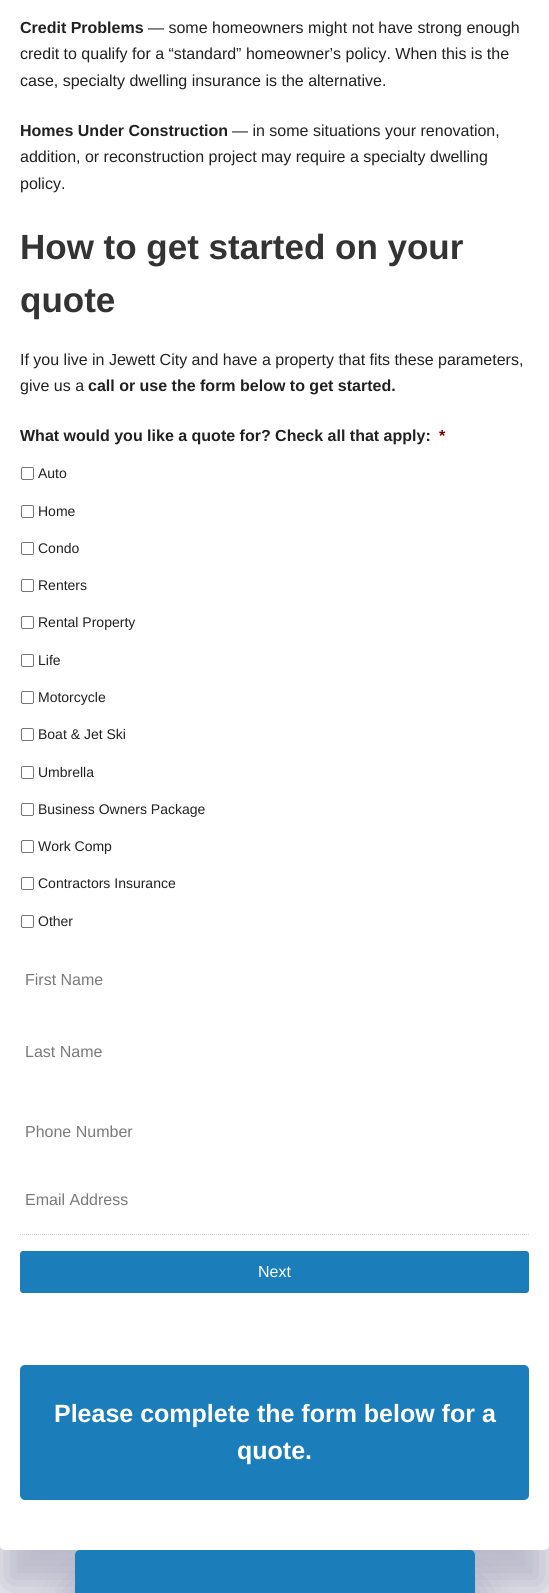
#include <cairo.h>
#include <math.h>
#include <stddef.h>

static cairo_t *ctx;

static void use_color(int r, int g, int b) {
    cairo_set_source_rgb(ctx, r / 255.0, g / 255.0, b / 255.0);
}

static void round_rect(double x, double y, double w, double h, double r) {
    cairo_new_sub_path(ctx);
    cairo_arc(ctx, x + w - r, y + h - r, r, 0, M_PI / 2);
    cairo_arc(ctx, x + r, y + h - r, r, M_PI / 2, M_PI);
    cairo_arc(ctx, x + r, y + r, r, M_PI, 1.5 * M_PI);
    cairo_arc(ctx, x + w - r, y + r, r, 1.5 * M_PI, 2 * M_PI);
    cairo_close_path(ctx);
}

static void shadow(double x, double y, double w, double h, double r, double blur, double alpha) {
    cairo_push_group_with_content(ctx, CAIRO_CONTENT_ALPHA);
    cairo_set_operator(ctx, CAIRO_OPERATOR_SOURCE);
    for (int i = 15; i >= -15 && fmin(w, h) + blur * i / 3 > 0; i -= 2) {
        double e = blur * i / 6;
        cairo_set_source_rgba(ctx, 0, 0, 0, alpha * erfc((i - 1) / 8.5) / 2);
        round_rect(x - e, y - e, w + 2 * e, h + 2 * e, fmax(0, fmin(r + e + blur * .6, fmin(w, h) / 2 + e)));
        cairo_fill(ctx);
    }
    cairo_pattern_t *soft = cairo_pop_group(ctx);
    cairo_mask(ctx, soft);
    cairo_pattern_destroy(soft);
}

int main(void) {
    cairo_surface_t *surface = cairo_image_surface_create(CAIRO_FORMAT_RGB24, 549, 1593);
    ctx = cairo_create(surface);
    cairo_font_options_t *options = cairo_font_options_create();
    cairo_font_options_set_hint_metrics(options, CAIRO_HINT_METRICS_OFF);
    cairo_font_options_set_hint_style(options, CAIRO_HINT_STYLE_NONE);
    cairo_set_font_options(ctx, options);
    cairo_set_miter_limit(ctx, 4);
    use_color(243, 245, 249);
    cairo_paint(ctx);
    use_color(28, 25, 73);
    shadow(0, -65, 549, 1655, 5, 20, 0.27);
    use_color(255, 255, 255);
    round_rect(0, -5, 549, 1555, 5);
    cairo_fill(ctx);
    cairo_select_font_face(ctx, "Liberation Sans", CAIRO_FONT_SLANT_NORMAL, CAIRO_FONT_WEIGHT_BOLD);
    cairo_set_font_size(ctx, 16);
    use_color(33, 33, 33);
    cairo_move_to(ctx, 20, 33);
    cairo_show_text(ctx, "Credit Problems");
    cairo_select_font_face(ctx, "Liberation Sans", CAIRO_FONT_SLANT_NORMAL, CAIRO_FONT_WEIGHT_NORMAL);
    cairo_move_to(ctx, 148, 33);
    cairo_show_text(ctx, "— some homeowners might not have strong enough");
    cairo_move_to(ctx, 20, 59);
    cairo_show_text(ctx, "credit to qualify for a “standard” homeowner’s policy. When this is the");
    cairo_move_to(ctx, 20, 86);
    cairo_show_text(ctx, "case, specialty dwelling insurance is the alternative.");
    cairo_select_font_face(ctx, "Liberation Sans", CAIRO_FONT_SLANT_NORMAL, CAIRO_FONT_WEIGHT_BOLD);
    cairo_move_to(ctx, 20, 136);
    cairo_show_text(ctx, "Homes Under Construction");
    cairo_select_font_face(ctx, "Liberation Sans", CAIRO_FONT_SLANT_NORMAL, CAIRO_FONT_WEIGHT_NORMAL);
    cairo_move_to(ctx, 232, 136);
    cairo_show_text(ctx, "— in some situations your renovation,");
    cairo_move_to(ctx, 20, 162);
    cairo_show_text(ctx, "addition, or reconstruction project may require a specialty dwelling");
    cairo_move_to(ctx, 20, 189);
    cairo_show_text(ctx, "policy.");
    cairo_select_font_face(ctx, "Liberation Sans", CAIRO_FONT_SLANT_NORMAL, CAIRO_FONT_WEIGHT_BOLD);
    cairo_set_font_size(ctx, 35);
    use_color(51, 51, 51);
    cairo_move_to(ctx, 20, 259);
    cairo_show_text(ctx, "How to get started on your");
    cairo_move_to(ctx, 20, 312);
    cairo_show_text(ctx, "quote");
    cairo_select_font_face(ctx, "Liberation Sans", CAIRO_FONT_SLANT_NORMAL, CAIRO_FONT_WEIGHT_NORMAL);
    cairo_set_font_size(ctx, 16);
    use_color(33, 33, 33);
    cairo_move_to(ctx, 20, 365);
    cairo_show_text(ctx, "If you live in Jewett City and have a property that fits these parameters,");
    cairo_move_to(ctx, 20, 391);
    cairo_show_text(ctx, "give us a");
    cairo_select_font_face(ctx, "Liberation Sans", CAIRO_FONT_SLANT_NORMAL, CAIRO_FONT_WEIGHT_BOLD);
    cairo_move_to(ctx, 88, 391);
    cairo_show_text(ctx, "call or use the form below to get started.");
    cairo_move_to(ctx, 20, 441);
    cairo_show_text(ctx, "What would you like a quote for? Check all that apply:");
    use_color(121, 0, 0);
    cairo_move_to(ctx, 439, 441);
    cairo_show_text(ctx, "*");
    round_rect(21.5, 467.5, 12, 12, 1.5);
    use_color(118, 118, 118);
    cairo_set_line_width(ctx, 1);
    cairo_stroke(ctx);
    cairo_select_font_face(ctx, "Liberation Sans", CAIRO_FONT_SLANT_NORMAL, CAIRO_FONT_WEIGHT_NORMAL);
    cairo_set_font_size(ctx, 14);
    use_color(33, 33, 33);
    cairo_move_to(ctx, 38, 478);
    cairo_show_text(ctx, "Auto");
    round_rect(21.5, 505.5, 12, 12, 1.5);
    use_color(118, 118, 118);
    cairo_stroke(ctx);
    use_color(33, 33, 33);
    cairo_move_to(ctx, 38, 516);
    cairo_show_text(ctx, "Home");
    round_rect(21.5, 542.5, 12, 12, 1.5);
    use_color(118, 118, 118);
    cairo_stroke(ctx);
    use_color(33, 33, 33);
    cairo_move_to(ctx, 38, 553);
    cairo_show_text(ctx, "Condo");
    round_rect(21.5, 579.5, 12, 12, 1.5);
    use_color(118, 118, 118);
    cairo_stroke(ctx);
    use_color(33, 33, 33);
    cairo_move_to(ctx, 38, 590);
    cairo_show_text(ctx, "Renters");
    round_rect(21.5, 616.5, 12, 12, 1.5);
    use_color(118, 118, 118);
    cairo_stroke(ctx);
    use_color(33, 33, 33);
    cairo_move_to(ctx, 38, 627);
    cairo_show_text(ctx, "Rental Property");
    round_rect(21.5, 654.5, 12, 12, 1.5);
    use_color(118, 118, 118);
    cairo_stroke(ctx);
    use_color(33, 33, 33);
    cairo_move_to(ctx, 38, 665);
    cairo_show_text(ctx, "Life");
    round_rect(21.5, 691.5, 12, 12, 1.5);
    use_color(118, 118, 118);
    cairo_stroke(ctx);
    use_color(33, 33, 33);
    cairo_move_to(ctx, 38, 702);
    cairo_show_text(ctx, "Motorcycle");
    round_rect(21.5, 728.5, 12, 12, 1.5);
    use_color(118, 118, 118);
    cairo_stroke(ctx);
    use_color(33, 33, 33);
    cairo_move_to(ctx, 38, 739);
    cairo_show_text(ctx, "Boat & Jet Ski");
    round_rect(21.5, 766.5, 12, 12, 1.5);
    use_color(118, 118, 118);
    cairo_stroke(ctx);
    use_color(33, 33, 33);
    cairo_move_to(ctx, 38, 777);
    cairo_show_text(ctx, "Umbrella");
    round_rect(21.5, 803.5, 12, 12, 1.5);
    use_color(118, 118, 118);
    cairo_stroke(ctx);
    use_color(33, 33, 33);
    cairo_move_to(ctx, 38, 814);
    cairo_show_text(ctx, "Business Owners Package");
    round_rect(21.5, 840.5, 12, 12, 1.5);
    use_color(118, 118, 118);
    cairo_stroke(ctx);
    use_color(33, 33, 33);
    cairo_move_to(ctx, 38, 851);
    cairo_show_text(ctx, "Work Comp");
    round_rect(21.5, 877.5, 12, 12, 1.5);
    use_color(118, 118, 118);
    cairo_stroke(ctx);
    use_color(33, 33, 33);
    cairo_move_to(ctx, 38, 888);
    cairo_show_text(ctx, "Contractors Insurance");
    round_rect(21.5, 915.5, 12, 12, 1.5);
    use_color(118, 118, 118);
    cairo_stroke(ctx);
    use_color(33, 33, 33);
    cairo_move_to(ctx, 38, 926);
    cairo_show_text(ctx, "Other");
    cairo_set_font_size(ctx, 16);
    use_color(122, 122, 122);
    cairo_move_to(ctx, 25, 985);
    cairo_show_text(ctx, "First Name");
    cairo_move_to(ctx, 25, 1057);
    cairo_show_text(ctx, "Last Name");
    cairo_move_to(ctx, 25, 1137);
    cairo_show_text(ctx, "Phone Number");
    cairo_move_to(ctx, 25, 1205);
    cairo_show_text(ctx, "Email Address");
    cairo_new_path(ctx);
    cairo_move_to(ctx, 20, 1234.5);
    cairo_line_to(ctx, 529, 1234.5);
    use_color(204, 204, 204);
    cairo_set_dash(ctx, (double[]){1, 1}, 2, 0);
    cairo_stroke(ctx);
    use_color(27, 126, 187);
    round_rect(20, 1251, 509, 42, 3);
    cairo_fill(ctx);
    use_color(255, 255, 255);
    cairo_move_to(ctx, 258, 1277);
    cairo_show_text(ctx, "Next");
    use_color(27, 126, 187);
    round_rect(20, 1365, 509, 135, 5);
    cairo_fill(ctx);
    cairo_select_font_face(ctx, "Liberation Sans", CAIRO_FONT_SLANT_NORMAL, CAIRO_FONT_WEIGHT_BOLD);
    cairo_set_font_size(ctx, 25);
    use_color(255, 255, 255);
    cairo_move_to(ctx, 54, 1422);
    cairo_show_text(ctx, "Please complete the form below for a");
    cairo_move_to(ctx, 237, 1459);
    cairo_show_text(ctx, "quote.");
    use_color(28, 25, 73);
    shadow(75, 1590, 400, 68, 5, 20, 0.33);
    use_color(27, 126, 187);
    round_rect(75, 1550, 400, 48, 5);
    cairo_fill(ctx);
    cairo_surface_write_to_png(surface, "result.png");
    cairo_font_options_destroy(options);
    cairo_destroy(ctx);
    cairo_surface_destroy(surface);
    return 0;
}
